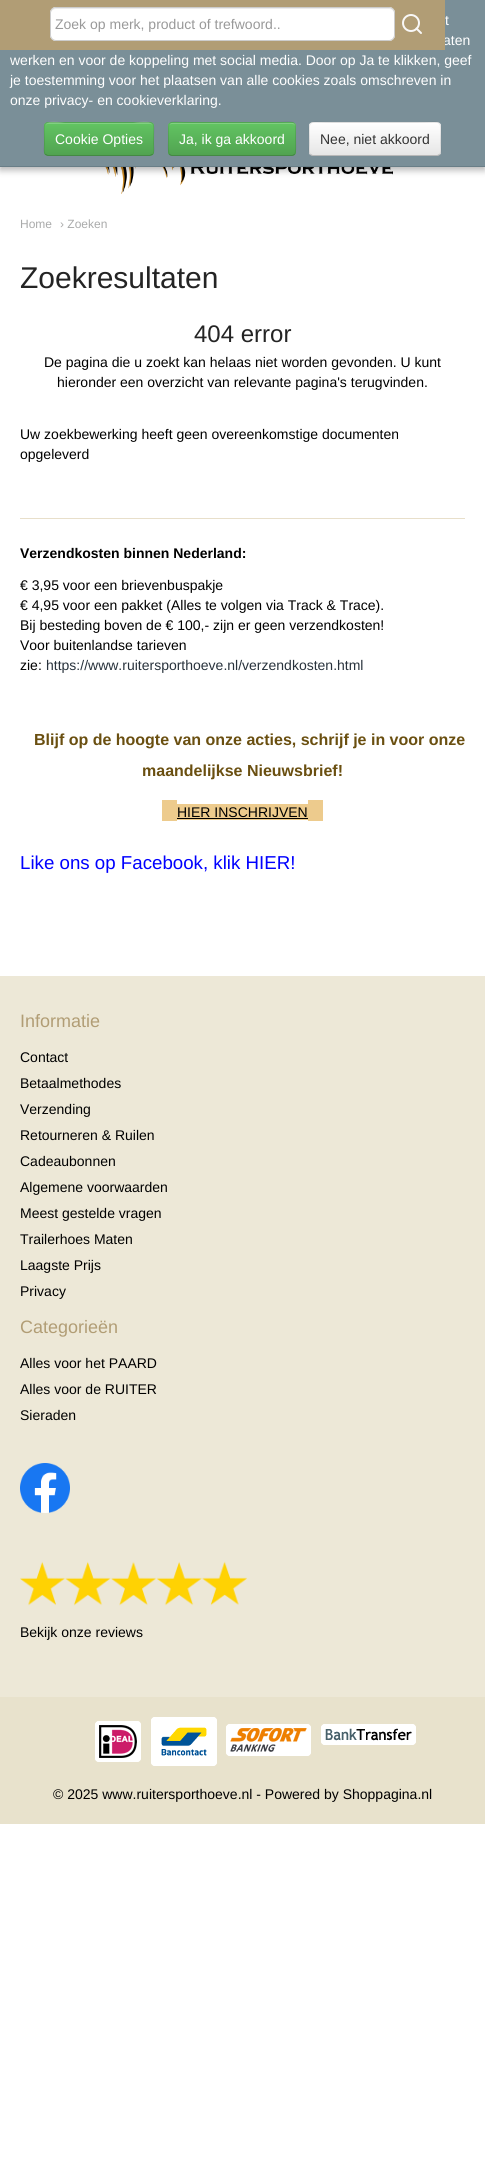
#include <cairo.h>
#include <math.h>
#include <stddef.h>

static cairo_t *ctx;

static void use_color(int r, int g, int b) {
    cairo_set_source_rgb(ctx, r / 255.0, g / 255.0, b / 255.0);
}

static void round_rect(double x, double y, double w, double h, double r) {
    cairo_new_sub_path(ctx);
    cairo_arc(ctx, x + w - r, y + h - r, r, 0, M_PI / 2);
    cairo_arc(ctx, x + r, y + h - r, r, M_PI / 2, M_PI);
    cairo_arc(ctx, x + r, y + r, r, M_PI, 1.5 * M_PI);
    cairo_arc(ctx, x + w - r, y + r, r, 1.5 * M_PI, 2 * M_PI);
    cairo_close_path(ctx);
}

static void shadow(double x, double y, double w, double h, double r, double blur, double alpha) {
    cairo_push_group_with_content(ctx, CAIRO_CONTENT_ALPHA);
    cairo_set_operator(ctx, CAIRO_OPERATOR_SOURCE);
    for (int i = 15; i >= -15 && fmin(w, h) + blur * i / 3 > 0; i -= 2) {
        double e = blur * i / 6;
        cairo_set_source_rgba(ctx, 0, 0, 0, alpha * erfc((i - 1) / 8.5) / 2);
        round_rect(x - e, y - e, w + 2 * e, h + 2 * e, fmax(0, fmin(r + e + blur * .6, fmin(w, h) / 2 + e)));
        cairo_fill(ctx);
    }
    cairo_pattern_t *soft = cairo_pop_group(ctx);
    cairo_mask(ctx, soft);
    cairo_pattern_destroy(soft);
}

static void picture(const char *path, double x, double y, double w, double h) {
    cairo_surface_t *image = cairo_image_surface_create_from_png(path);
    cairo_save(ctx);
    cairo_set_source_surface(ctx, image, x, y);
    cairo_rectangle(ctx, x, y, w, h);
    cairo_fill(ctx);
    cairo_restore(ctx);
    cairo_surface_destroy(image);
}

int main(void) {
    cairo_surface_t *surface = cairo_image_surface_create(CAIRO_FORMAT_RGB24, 485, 2176);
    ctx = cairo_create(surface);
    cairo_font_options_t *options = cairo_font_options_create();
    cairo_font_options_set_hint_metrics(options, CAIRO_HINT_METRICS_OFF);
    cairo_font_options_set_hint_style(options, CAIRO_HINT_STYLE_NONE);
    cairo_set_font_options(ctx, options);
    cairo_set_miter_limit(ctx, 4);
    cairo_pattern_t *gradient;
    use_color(255, 255, 255);
    cairo_paint(ctx);
    picture("img1.png", 105, 167, 288, 27);
    use_color(0, 0, 0);
    shadow(0, 3, 485, 167, 0, 3.5, 0.3);
    use_color(122, 143, 152);
    cairo_rectangle(ctx, 0, 0, 485, 166);
    cairo_fill(ctx);
    use_color(105, 126, 135);
    cairo_rectangle(ctx, 0, 166, 485, 1);
    cairo_fill(ctx);
    cairo_select_font_face(ctx, "Liberation Sans", CAIRO_FONT_SLANT_NORMAL, CAIRO_FONT_WEIGHT_NORMAL);
    cairo_set_font_size(ctx, 14);
    use_color(255, 255, 255);
    cairo_move_to(ctx, 445, 25);
    cairo_show_text(ctx, "t");
    cairo_move_to(ctx, 443, 45);
    cairo_show_text(ctx, "aten");
    cairo_move_to(ctx, 10, 65);
    cairo_show_text(ctx, "werken en voor de koppeling met social media. Door op Ja te klikken, geef");
    cairo_move_to(ctx, 10, 85);
    cairo_show_text(ctx, "je toestemming voor het plaatsen van alle cookies zoals omschreven in");
    cairo_move_to(ctx, 10, 105);
    cairo_show_text(ctx, "onze privacy- en cookieverklaring.");
    use_color(91, 183, 91);
    round_rect(44, 122, 110, 34, 4);
    cairo_fill(ctx);
    cairo_save(ctx);
    round_rect(44, 122, 110, 34, 4);
    cairo_clip(ctx);
    gradient = cairo_pattern_create_linear(99, 123, 99, 155);
    cairo_pattern_add_color_stop_rgba(gradient, 0, 0.384, 0.769, 0.384, 1);
    cairo_pattern_add_color_stop_rgba(gradient, 1, 0.318, 0.639, 0.318, 1);
    cairo_set_source(ctx, gradient);
    cairo_pattern_destroy(gradient);
    cairo_rectangle(ctx, 44, 123, 110, 32);
    cairo_fill(ctx);
    cairo_restore(ctx);
    cairo_set_source_rgba(ctx, 1, 1, 1, 0.2);
    cairo_new_path(ctx);
    cairo_move_to(ctx, 48, 124);
    cairo_line_to(ctx, 150, 124);
    cairo_curve_to(ctx, 152, 124, 153, 125, 153, 127);
    cairo_curve_to(ctx, 153, 118, 135, 123, 133, 123);
    cairo_line_to(ctx, 65, 123);
    cairo_curve_to(ctx, 63, 123, 45, 118, 45, 127);
    cairo_curve_to(ctx, 45, 125, 46, 124, 48, 124);
    cairo_close_path(ctx);
    cairo_fill(ctx);
    cairo_new_path(ctx);
    cairo_move_to(ctx, 152.5, 154.5);
    cairo_line_to(ctx, 150, 155.5);
    cairo_line_to(ctx, 47.5, 155.5);
    cairo_line_to(ctx, 45.5, 154.5);
    cairo_set_source_rgba(ctx, 0, 0, 0, 0.25);
    cairo_set_line_width(ctx, 1);
    cairo_stroke(ctx);
    cairo_new_path(ctx);
    cairo_move_to(ctx, 45.5, 154.5);
    cairo_curve_to(ctx, 43, 152, 44.5, 146, 44.5, 143.5);
    cairo_curve_to(ctx, 44.5, 119, 40, 122.5, 65, 122.5);
    cairo_line_to(ctx, 133, 122.5);
    cairo_curve_to(ctx, 158, 122.5, 153.5, 119, 153.5, 143.5);
    cairo_curve_to(ctx, 153.5, 146, 155, 152, 152.5, 154.5);
    cairo_set_source_rgba(ctx, 0, 0, 0, 0.1);
    cairo_stroke(ctx);
    use_color(255, 255, 255);
    cairo_move_to(ctx, 55, 144);
    cairo_show_text(ctx, "Cookie Opties");
    use_color(91, 183, 91);
    round_rect(168, 122, 128, 34, 4);
    cairo_fill(ctx);
    cairo_save(ctx);
    round_rect(168, 122, 128, 34, 4);
    cairo_clip(ctx);
    gradient = cairo_pattern_create_linear(232, 123, 232, 155);
    cairo_pattern_add_color_stop_rgba(gradient, 0, 0.384, 0.769, 0.384, 1);
    cairo_pattern_add_color_stop_rgba(gradient, 1, 0.318, 0.639, 0.318, 1);
    cairo_set_source(ctx, gradient);
    cairo_pattern_destroy(gradient);
    cairo_rectangle(ctx, 168, 123, 128, 32);
    cairo_fill(ctx);
    cairo_restore(ctx);
    use_color(129, 207, 129);
    cairo_new_path(ctx);
    cairo_move_to(ctx, 172, 124);
    cairo_line_to(ctx, 292, 124);
    cairo_curve_to(ctx, 294, 124, 295, 125, 295, 127);
    cairo_curve_to(ctx, 295, 125, 295, 123, 293, 123);
    cairo_line_to(ctx, 172, 123);
    cairo_curve_to(ctx, 170, 123, 169, 125, 169, 127);
    cairo_curve_to(ctx, 169, 125, 170, 124, 172, 124);
    cairo_close_path(ctx);
    cairo_fill(ctx);
    cairo_new_path(ctx);
    cairo_move_to(ctx, 294.5, 154.5);
    cairo_curve_to(ctx, 294, 155, 293, 155.5, 292, 155.5);
    cairo_line_to(ctx, 172, 155.5);
    cairo_curve_to(ctx, 171, 155.5, 170, 155, 169.5, 154.5);
    cairo_set_source_rgba(ctx, 0, 0, 0, 0.25);
    cairo_stroke(ctx);
    cairo_new_path(ctx);
    cairo_move_to(ctx, 169.5, 154.5);
    cairo_curve_to(ctx, 167.5, 152, 168.5, 142, 168.5, 139);
    cairo_curve_to(ctx, 168.5, 117.5, 166.5, 122.5, 192, 122.5);
    cairo_line_to(ctx, 272, 122.5);
    cairo_curve_to(ctx, 297.5, 122.5, 295.5, 117.5, 295.5, 139);
    cairo_curve_to(ctx, 295.5, 142, 296.5, 152, 294.5, 154.5);
    cairo_set_source_rgba(ctx, 0, 0, 0, 0.1);
    cairo_stroke(ctx);
    use_color(255, 255, 255);
    cairo_move_to(ctx, 179, 144);
    cairo_show_text(ctx, "Ja, ik ga akkoord");
    use_color(245, 245, 245);
    round_rect(309, 122, 132, 34, 4);
    cairo_fill(ctx);
    cairo_save(ctx);
    round_rect(309, 122, 132, 34, 4);
    cairo_clip(ctx);
    gradient = cairo_pattern_create_linear(375, 123, 375, 155);
    cairo_pattern_add_color_stop_rgba(gradient, 0, 1, 1, 1, 1);
    cairo_pattern_add_color_stop_rgba(gradient, 1, 0.902, 0.902, 0.902, 1);
    cairo_set_source(ctx, gradient);
    cairo_pattern_destroy(gradient);
    cairo_rectangle(ctx, 309, 123, 132, 32);
    cairo_fill(ctx);
    cairo_restore(ctx);
    cairo_new_path(ctx);
    cairo_move_to(ctx, 439.5, 154.5);
    cairo_curve_to(ctx, 439, 155, 438, 155.5, 437, 155.5);
    cairo_line_to(ctx, 313, 155.5);
    cairo_curve_to(ctx, 312, 155.5, 311, 155, 310.5, 154.5);
    cairo_set_source_rgba(ctx, 0, 0, 0, 0.25);
    cairo_stroke(ctx);
    cairo_new_path(ctx);
    cairo_move_to(ctx, 310.5, 154.5);
    cairo_curve_to(ctx, 308, 152, 309.5, 146, 309.5, 143.5);
    cairo_curve_to(ctx, 309.5, 117.5, 305, 122.5, 333.5, 122.5);
    cairo_line_to(ctx, 416.5, 122.5);
    cairo_curve_to(ctx, 445, 122.5, 440.5, 117.5, 440.5, 143.5);
    cairo_curve_to(ctx, 440.5, 146, 442, 152, 439.5, 154.5);
    cairo_set_source_rgba(ctx, 0, 0, 0, 0.1);
    cairo_stroke(ctx);
    use_color(51, 51, 51);
    cairo_move_to(ctx, 320, 144);
    cairo_show_text(ctx, "Nee, niet akkoord");
    use_color(177, 157, 117);
    cairo_rectangle(ctx, 0, 0, 445, 50);
    cairo_fill(ctx);
    use_color(255, 255, 255);
    round_rect(50, 7, 345, 34, 6);
    cairo_fill(ctx);
    use_color(236, 236, 236);
    cairo_new_path(ctx);
    cairo_move_to(ctx, 56, 9);
    cairo_line_to(ctx, 389, 9);
    cairo_curve_to(ctx, 392, 9, 394, 11, 394, 14);
    cairo_curve_to(ctx, 394, 11, 392, 8, 389, 8);
    cairo_line_to(ctx, 56, 8);
    cairo_curve_to(ctx, 53, 8, 51, 11, 51, 14);
    cairo_curve_to(ctx, 51, 11, 53, 9, 56, 9);
    cairo_close_path(ctx);
    cairo_fill(ctx);
    round_rect(50.5, 7.5, 344, 33, 5.5);
    use_color(204, 204, 204);
    cairo_stroke(ctx);
    use_color(153, 153, 153);
    cairo_move_to(ctx, 55, 29);
    cairo_show_text(ctx, "Zoek op merk, product of trefwoord..");
    cairo_new_path(ctx);
    cairo_arc(ctx, 411, 23, 8, 0, 2 * M_PI);
    use_color(249, 248, 247);
    cairo_set_line_width(ctx, 2);
    cairo_stroke(ctx);
    cairo_new_path(ctx);
    cairo_move_to(ctx, 421, 33);
    cairo_line_to(ctx, 416.5, 28.5);
    cairo_set_line_cap(ctx, CAIRO_LINE_CAP_ROUND);
    cairo_set_line_join(ctx, CAIRO_LINE_JOIN_ROUND);
    cairo_stroke(ctx);
    cairo_set_font_size(ctx, 12);
    use_color(169, 170, 170);
    cairo_move_to(ctx, 20, 228);
    cairo_show_text(ctx, "Home");
    cairo_move_to(ctx, 60, 228);
    cairo_show_text(ctx, "› Zoeken");
    cairo_set_font_size(ctx, 30);
    use_color(36, 36, 36);
    cairo_move_to(ctx, 20, 288);
    cairo_show_text(ctx, "Zoekresultaten");
    cairo_set_font_size(ctx, 24);
    cairo_move_to(ctx, 194, 342);
    cairo_show_text(ctx, "404 error");
    cairo_set_font_size(ctx, 14);
    use_color(0, 0, 0);
    cairo_move_to(ctx, 44, 367);
    cairo_show_text(ctx, "De pagina die u zoekt kan helaas niet worden gevonden. U kunt");
    cairo_move_to(ctx, 57, 387);
    cairo_show_text(ctx, "hieronder een overzicht van relevante pagina's terugvinden.");
    cairo_move_to(ctx, 20, 439);
    cairo_show_text(ctx, "Uw zoekbewerking heeft geen overeenkomstige documenten");
    cairo_move_to(ctx, 20, 459);
    cairo_show_text(ctx, "opgeleverd");
    use_color(232, 223, 202);
    cairo_rectangle(ctx, 20, 518, 445, 1);
    cairo_fill(ctx);
    cairo_select_font_face(ctx, "Liberation Sans", CAIRO_FONT_SLANT_NORMAL, CAIRO_FONT_WEIGHT_BOLD);
    use_color(0, 0, 0);
    cairo_move_to(ctx, 20, 558);
    cairo_show_text(ctx, "Verzendkosten binnen Nederland:");
    cairo_select_font_face(ctx, "Liberation Sans", CAIRO_FONT_SLANT_NORMAL, CAIRO_FONT_WEIGHT_NORMAL);
    cairo_move_to(ctx, 20, 590);
    cairo_show_text(ctx, "€ 3,95 voor een brievenbuspakje");
    cairo_move_to(ctx, 20, 610);
    cairo_show_text(ctx, "€ 4,95 voor een pakket (Alles te volgen via Track & Trace).");
    cairo_move_to(ctx, 20, 630);
    cairo_show_text(ctx, "Bij besteding boven de € 100,- zijn er geen verzendkosten!");
    cairo_move_to(ctx, 20, 650);
    cairo_show_text(ctx, "Voor buitenlandse tarieven");
    cairo_move_to(ctx, 20, 670);
    cairo_show_text(ctx, "zie:");
    use_color(40, 50, 60);
    cairo_move_to(ctx, 46, 670);
    cairo_show_text(ctx, "https://www.ruitersporthoeve.nl/verzendkosten.html");
    cairo_select_font_face(ctx, "Liberation Sans", CAIRO_FONT_SLANT_NORMAL, CAIRO_FONT_WEIGHT_BOLD);
    cairo_set_font_size(ctx, 16);
    use_color(106, 79, 16);
    cairo_move_to(ctx, 34, 745);
    cairo_show_text(ctx, "Blijf op de hoogte van onze acties, schrijf je in voor onze");
    cairo_move_to(ctx, 142, 776);
    cairo_show_text(ctx, "maandelijkse Nieuwsbrief!");
    use_color(237, 203, 141);
    cairo_rectangle(ctx, 177, 804, 131, 16);
    cairo_fill(ctx);
    cairo_select_font_face(ctx, "Liberation Sans", CAIRO_FONT_SLANT_NORMAL, CAIRO_FONT_WEIGHT_NORMAL);
    cairo_set_font_size(ctx, 14);
    use_color(0, 0, 0);
    cairo_move_to(ctx, 177, 817);
    cairo_show_text(ctx, "HIER INSCHRIJVEN");
    use_color(237, 203, 141);
    cairo_rectangle(ctx, 162, 800, 15, 21);
    cairo_fill(ctx);
    cairo_rectangle(ctx, 308, 800, 15, 21);
    cairo_fill(ctx);
    use_color(0, 0, 0);
    cairo_rectangle(ctx, 177, 818, 131, 1);
    cairo_fill(ctx);
    cairo_set_font_size(ctx, 18.7);
    use_color(0, 0, 255);
    cairo_move_to(ctx, 20, 869);
    cairo_show_text(ctx, "Like ons op Facebook, klik HIER!");
    use_color(237, 232, 215);
    cairo_rectangle(ctx, 0, 976, 485, 721);
    cairo_fill(ctx);
    cairo_set_font_size(ctx, 18);
    use_color(177, 157, 117);
    cairo_move_to(ctx, 20, 1027);
    cairo_show_text(ctx, "Informatie");
    cairo_set_font_size(ctx, 14);
    use_color(0, 0, 0);
    cairo_move_to(ctx, 20, 1062);
    cairo_show_text(ctx, "Contact");
    cairo_move_to(ctx, 20, 1088);
    cairo_show_text(ctx, "Betaalmethodes");
    cairo_move_to(ctx, 20, 1114);
    cairo_show_text(ctx, "Verzending");
    cairo_move_to(ctx, 20, 1140);
    cairo_show_text(ctx, "Retourneren & Ruilen");
    cairo_move_to(ctx, 20, 1166);
    cairo_show_text(ctx, "Cadeaubonnen");
    cairo_move_to(ctx, 20, 1192);
    cairo_show_text(ctx, "Algemene voorwaarden");
    cairo_move_to(ctx, 20, 1218);
    cairo_show_text(ctx, "Meest gestelde vragen");
    cairo_move_to(ctx, 20, 1244);
    cairo_show_text(ctx, "Trailerhoes Maten");
    cairo_move_to(ctx, 20, 1270);
    cairo_show_text(ctx, "Laagste Prijs");
    cairo_move_to(ctx, 20, 1296);
    cairo_show_text(ctx, "Privacy");
    cairo_set_font_size(ctx, 18);
    use_color(177, 157, 117);
    cairo_move_to(ctx, 20, 1333);
    cairo_show_text(ctx, "Categorieën");
    cairo_set_font_size(ctx, 14);
    use_color(0, 0, 0);
    cairo_move_to(ctx, 20, 1368);
    cairo_show_text(ctx, "Alles voor het PAARD");
    cairo_move_to(ctx, 20, 1394);
    cairo_show_text(ctx, "Alles voor de RUITER");
    cairo_move_to(ctx, 20, 1420);
    cairo_show_text(ctx, "Sieraden");
    picture("img2.png", 20, 1463, 50, 50);
    picture("img3.png", 20, 1561, 227, 45);
    cairo_move_to(ctx, 20, 1637);
    cairo_show_text(ctx, "Bekijk onze reviews");
    use_color(232, 226, 204);
    cairo_rectangle(ctx, 0, 1697, 485, 127);
    cairo_fill(ctx);
    use_color(255, 255, 255);
    round_rect(95, 1721, 46, 41, 4);
    cairo_fill(ctx);
    picture("img4.png", 99, 1725, 38, 33);
    round_rect(97, 1723, 42, 37, 2);
    cairo_set_line_width(ctx, 4);
    cairo_set_line_cap(ctx, CAIRO_LINE_CAP_BUTT);
    cairo_set_line_join(ctx, CAIRO_LINE_JOIN_MITER);
    cairo_stroke(ctx);
    round_rect(151, 1717, 66, 49, 4);
    cairo_fill(ctx);
    picture("img5.png", 161, 1727, 46, 29);
    round_rect(153, 1719, 62, 45, 2);
    cairo_stroke(ctx);
    round_rect(226, 1724, 85, 32, 4);
    cairo_fill(ctx);
    picture("img6.png", 230, 1728, 77, 24);
    round_rect(228, 1726, 81, 28, 2);
    cairo_stroke(ctx);
    round_rect(321, 1724, 95, 21, 4);
    cairo_fill(ctx);
    picture("img7.png", 325, 1728, 87, 13);
    round_rect(323, 1726, 91, 17, 2);
    cairo_stroke(ctx);
    use_color(0, 0, 0);
    cairo_move_to(ctx, 53, 1799);
    cairo_show_text(ctx, "© 2025 www.ruitersporthoeve.nl - Powered by Shoppagina.nl");
    cairo_surface_write_to_png(surface, "result.png");
    cairo_font_options_destroy(options);
    cairo_destroy(ctx);
    cairo_surface_destroy(surface);
    return 0;
}
